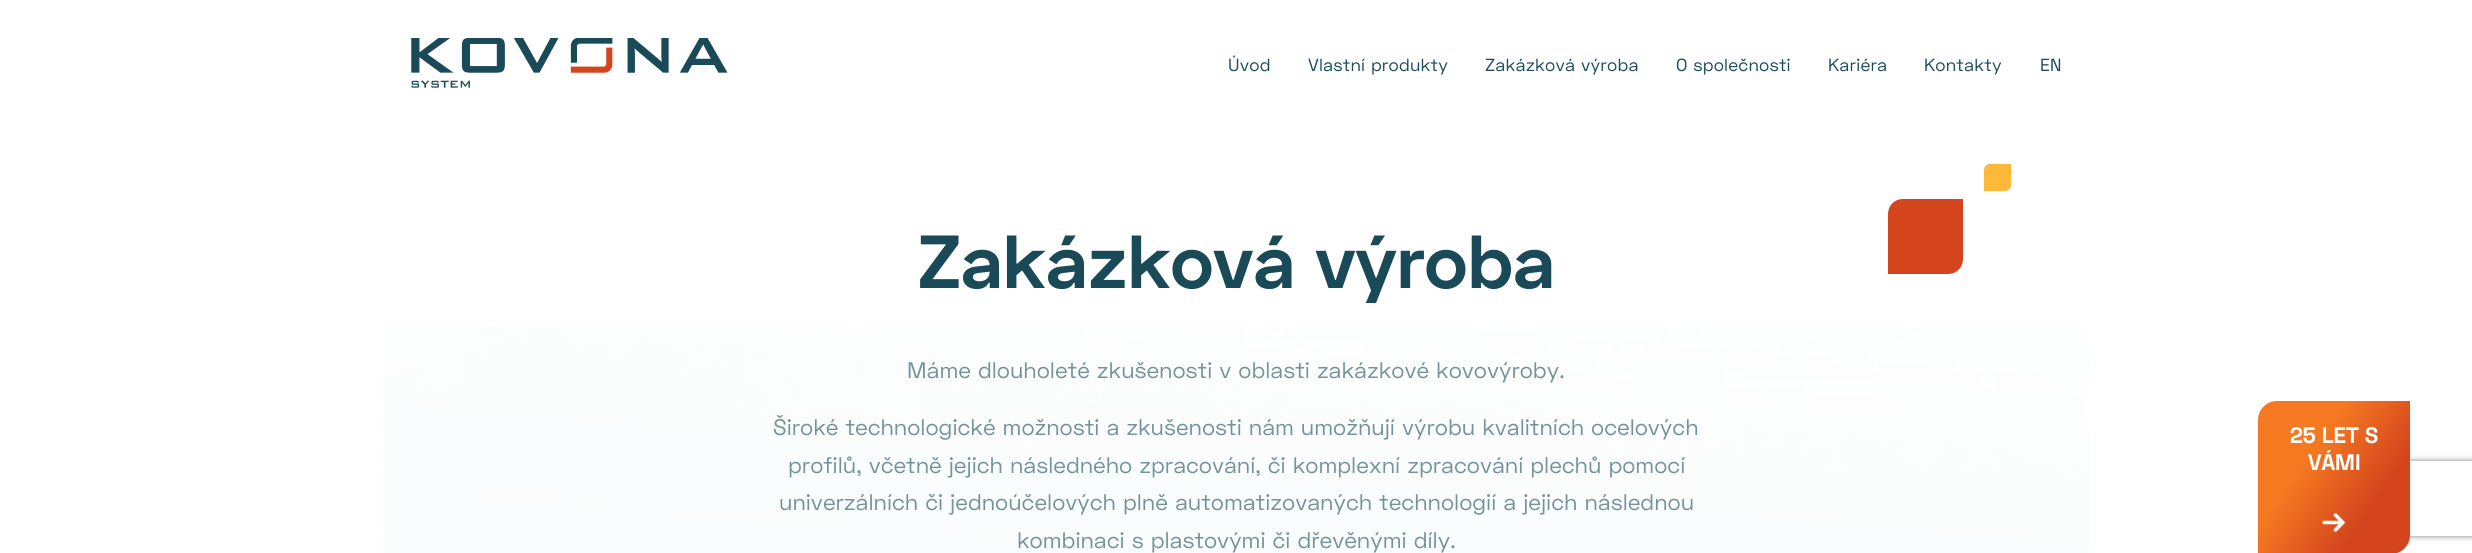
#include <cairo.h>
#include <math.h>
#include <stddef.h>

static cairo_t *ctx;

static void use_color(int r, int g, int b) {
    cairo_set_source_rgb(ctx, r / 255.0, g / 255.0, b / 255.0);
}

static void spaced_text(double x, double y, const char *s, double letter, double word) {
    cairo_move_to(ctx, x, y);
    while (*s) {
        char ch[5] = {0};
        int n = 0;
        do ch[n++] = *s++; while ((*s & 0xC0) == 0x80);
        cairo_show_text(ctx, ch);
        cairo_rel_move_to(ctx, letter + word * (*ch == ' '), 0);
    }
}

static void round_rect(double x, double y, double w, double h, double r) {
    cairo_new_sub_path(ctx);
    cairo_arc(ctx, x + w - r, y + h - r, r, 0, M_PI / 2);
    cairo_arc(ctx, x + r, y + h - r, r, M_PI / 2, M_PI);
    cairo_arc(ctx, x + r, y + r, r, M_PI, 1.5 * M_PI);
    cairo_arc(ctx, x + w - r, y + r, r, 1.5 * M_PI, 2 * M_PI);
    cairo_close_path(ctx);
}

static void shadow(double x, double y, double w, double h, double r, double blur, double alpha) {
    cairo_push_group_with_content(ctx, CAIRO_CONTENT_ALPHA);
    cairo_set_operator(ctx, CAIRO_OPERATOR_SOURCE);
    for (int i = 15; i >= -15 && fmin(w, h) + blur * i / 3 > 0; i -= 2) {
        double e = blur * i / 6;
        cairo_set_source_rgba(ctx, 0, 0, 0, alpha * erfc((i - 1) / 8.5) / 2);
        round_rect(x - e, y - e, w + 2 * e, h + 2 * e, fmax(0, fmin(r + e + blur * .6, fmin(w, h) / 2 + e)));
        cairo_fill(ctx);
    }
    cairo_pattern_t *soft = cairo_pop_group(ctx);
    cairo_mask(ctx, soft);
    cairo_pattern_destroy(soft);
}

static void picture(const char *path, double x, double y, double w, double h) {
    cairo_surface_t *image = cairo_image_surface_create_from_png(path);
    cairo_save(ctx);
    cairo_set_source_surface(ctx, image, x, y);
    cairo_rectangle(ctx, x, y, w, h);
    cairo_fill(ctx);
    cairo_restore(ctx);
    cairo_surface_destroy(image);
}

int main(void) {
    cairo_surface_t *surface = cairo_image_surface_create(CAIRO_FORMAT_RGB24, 2472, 553);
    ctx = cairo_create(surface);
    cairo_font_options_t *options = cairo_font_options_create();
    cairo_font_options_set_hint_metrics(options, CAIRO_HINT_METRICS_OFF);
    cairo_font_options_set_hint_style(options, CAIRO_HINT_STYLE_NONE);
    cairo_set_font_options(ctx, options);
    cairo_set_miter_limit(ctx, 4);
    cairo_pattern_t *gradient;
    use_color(255, 255, 255);
    cairo_paint(ctx);
    picture("img1.png", 411, 38, 317, 50);
    cairo_select_font_face(ctx, "Space Grotesk", CAIRO_FONT_SLANT_NORMAL, CAIRO_FONT_WEIGHT_NORMAL);
    cairo_set_font_size(ctx, 17.5);
    use_color(26, 74, 88);
    spaced_text(1228, 71, "Úvod", 0.2, 0);
    spaced_text(1308, 71, "Vlastní produkty", 0.2, 0);
    spaced_text(1485, 71, "Zakázková výroba", 0.2, 0);
    spaced_text(1676, 71, "O společnosti", 0.2, 0);
    spaced_text(1828, 71, "Kariéra", 0.2, 0);
    spaced_text(1924, 71, "Kontakty", 0.2, 0);
    spaced_text(2040, 71, "EN", 0.2, 0);
    use_color(253, 185, 57);
    cairo_new_path(ctx);
    cairo_move_to(ctx, 1990, 164);
    cairo_line_to(ctx, 2011, 164);
    cairo_line_to(ctx, 2011, 185);
    cairo_curve_to(ctx, 2011, 188.5, 2008.5, 191, 2005, 191);
    cairo_line_to(ctx, 1984, 191);
    cairo_line_to(ctx, 1984, 170);
    cairo_curve_to(ctx, 1984, 166.5, 1986.5, 164, 1990, 164);
    cairo_close_path(ctx);
    cairo_fill(ctx);
    cairo_select_font_face(ctx, "Space Grotesk", CAIRO_FONT_SLANT_NORMAL, CAIRO_FONT_WEIGHT_BOLD);
    cairo_set_font_size(ctx, 75);
    use_color(26, 74, 88);
    cairo_move_to(ctx, 918, 288);
    cairo_show_text(ctx, "Zakázková výroba");
    picture("img2.png", 383, 326, 1706, 227);
    cairo_select_font_face(ctx, "Space Grotesk", CAIRO_FONT_SLANT_NORMAL, CAIRO_FONT_WEIGHT_NORMAL);
    cairo_set_font_size(ctx, 22.5);
    use_color(116, 146, 154);
    cairo_move_to(ctx, 907, 378);
    cairo_show_text(ctx, "Máme dlouholeté zkušenosti v oblasti zakázkové kovovýroby.");
    cairo_move_to(ctx, 773, 435);
    cairo_show_text(ctx, "Široké technologické možnosti a zkušenosti nám umožňují výrobu kvalitních ocelových");
    cairo_move_to(ctx, 788, 473);
    cairo_show_text(ctx, "profilů, včetně jejich následného zpracování, či komplexní zpracování plechů pomocí");
    cairo_move_to(ctx, 779, 510);
    cairo_show_text(ctx, "univerzálních či jednoúčelových plně automatizovaných technologií a jejich následnou");
    cairo_move_to(ctx, 1017, 548);
    cairo_show_text(ctx, "kombinaci s plastovými či dřevěnými díly.");
    use_color(212, 69, 30);
    cairo_new_path(ctx);
    cairo_move_to(ctx, 1903, 199);
    cairo_line_to(ctx, 1963, 199);
    cairo_line_to(ctx, 1963, 259);
    cairo_curve_to(ctx, 1963, 267.5, 1956.5, 274, 1948, 274);
    cairo_line_to(ctx, 1888, 274);
    cairo_line_to(ctx, 1888, 214);
    cairo_curve_to(ctx, 1888, 205.5, 1894.5, 199, 1903, 199);
    cairo_close_path(ctx);
    cairo_fill(ctx);
    cairo_save(ctx);
    cairo_set_fill_rule(ctx, CAIRO_FILL_RULE_EVEN_ODD);
    cairo_new_path(ctx);
    cairo_move_to(ctx, 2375, 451);
    cairo_line_to(ctx, 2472, 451);
    cairo_line_to(ctx, 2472, 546);
    cairo_line_to(ctx, 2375, 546);
    cairo_close_path(ctx);
    cairo_move_to(ctx, 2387.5, 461);
    cairo_line_to(ctx, 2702.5, 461);
    cairo_curve_to(ctx, 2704, 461, 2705, 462, 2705, 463.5);
    cairo_line_to(ctx, 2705, 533.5);
    cairo_curve_to(ctx, 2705, 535, 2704, 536, 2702.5, 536);
    cairo_line_to(ctx, 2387.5, 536);
    cairo_curve_to(ctx, 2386, 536, 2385, 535, 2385, 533.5);
    cairo_line_to(ctx, 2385, 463.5);
    cairo_curve_to(ctx, 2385, 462, 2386, 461, 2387.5, 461);
    cairo_close_path(ctx);
    cairo_clip(ctx);
    use_color(128, 128, 128);
    shadow(2385, 461, 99, 75, 2.5, 3, 1);
    cairo_restore(ctx);
    gradient = cairo_pattern_create_linear(2421, 537, 2246, 418);
    cairo_pattern_add_color_stop_rgba(gradient, 0.28, 0.831, 0.271, 0.118, 1);
    cairo_pattern_add_color_stop_rgba(gradient, 0.65, 0.957, 0.475, 0.129, 1);
    cairo_set_source(ctx, gradient);
    cairo_pattern_destroy(gradient);
    cairo_new_path(ctx);
    cairo_move_to(ctx, 2277, 401);
    cairo_line_to(ctx, 2410, 401);
    cairo_line_to(ctx, 2410, 535);
    cairo_curve_to(ctx, 2410, 545.5, 2401.5, 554, 2391, 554);
    cairo_line_to(ctx, 2258, 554);
    cairo_line_to(ctx, 2258, 420);
    cairo_curve_to(ctx, 2258, 409.5, 2266.5, 401, 2277, 401);
    cairo_close_path(ctx);
    cairo_fill(ctx);
    cairo_select_font_face(ctx, "Space Grotesk", CAIRO_FONT_SLANT_NORMAL, CAIRO_FONT_WEIGHT_BOLD);
    use_color(255, 255, 255);
    cairo_move_to(ctx, 2290, 443);
    cairo_show_text(ctx, "25 LET S");
    cairo_move_to(ctx, 2308, 470);
    cairo_show_text(ctx, "VÁMI");
    picture("img3.png", 2322, 513, 24, 19);
    cairo_surface_write_to_png(surface, "result.png");
    cairo_font_options_destroy(options);
    cairo_destroy(ctx);
    cairo_surface_destroy(surface);
    return 0;
}
